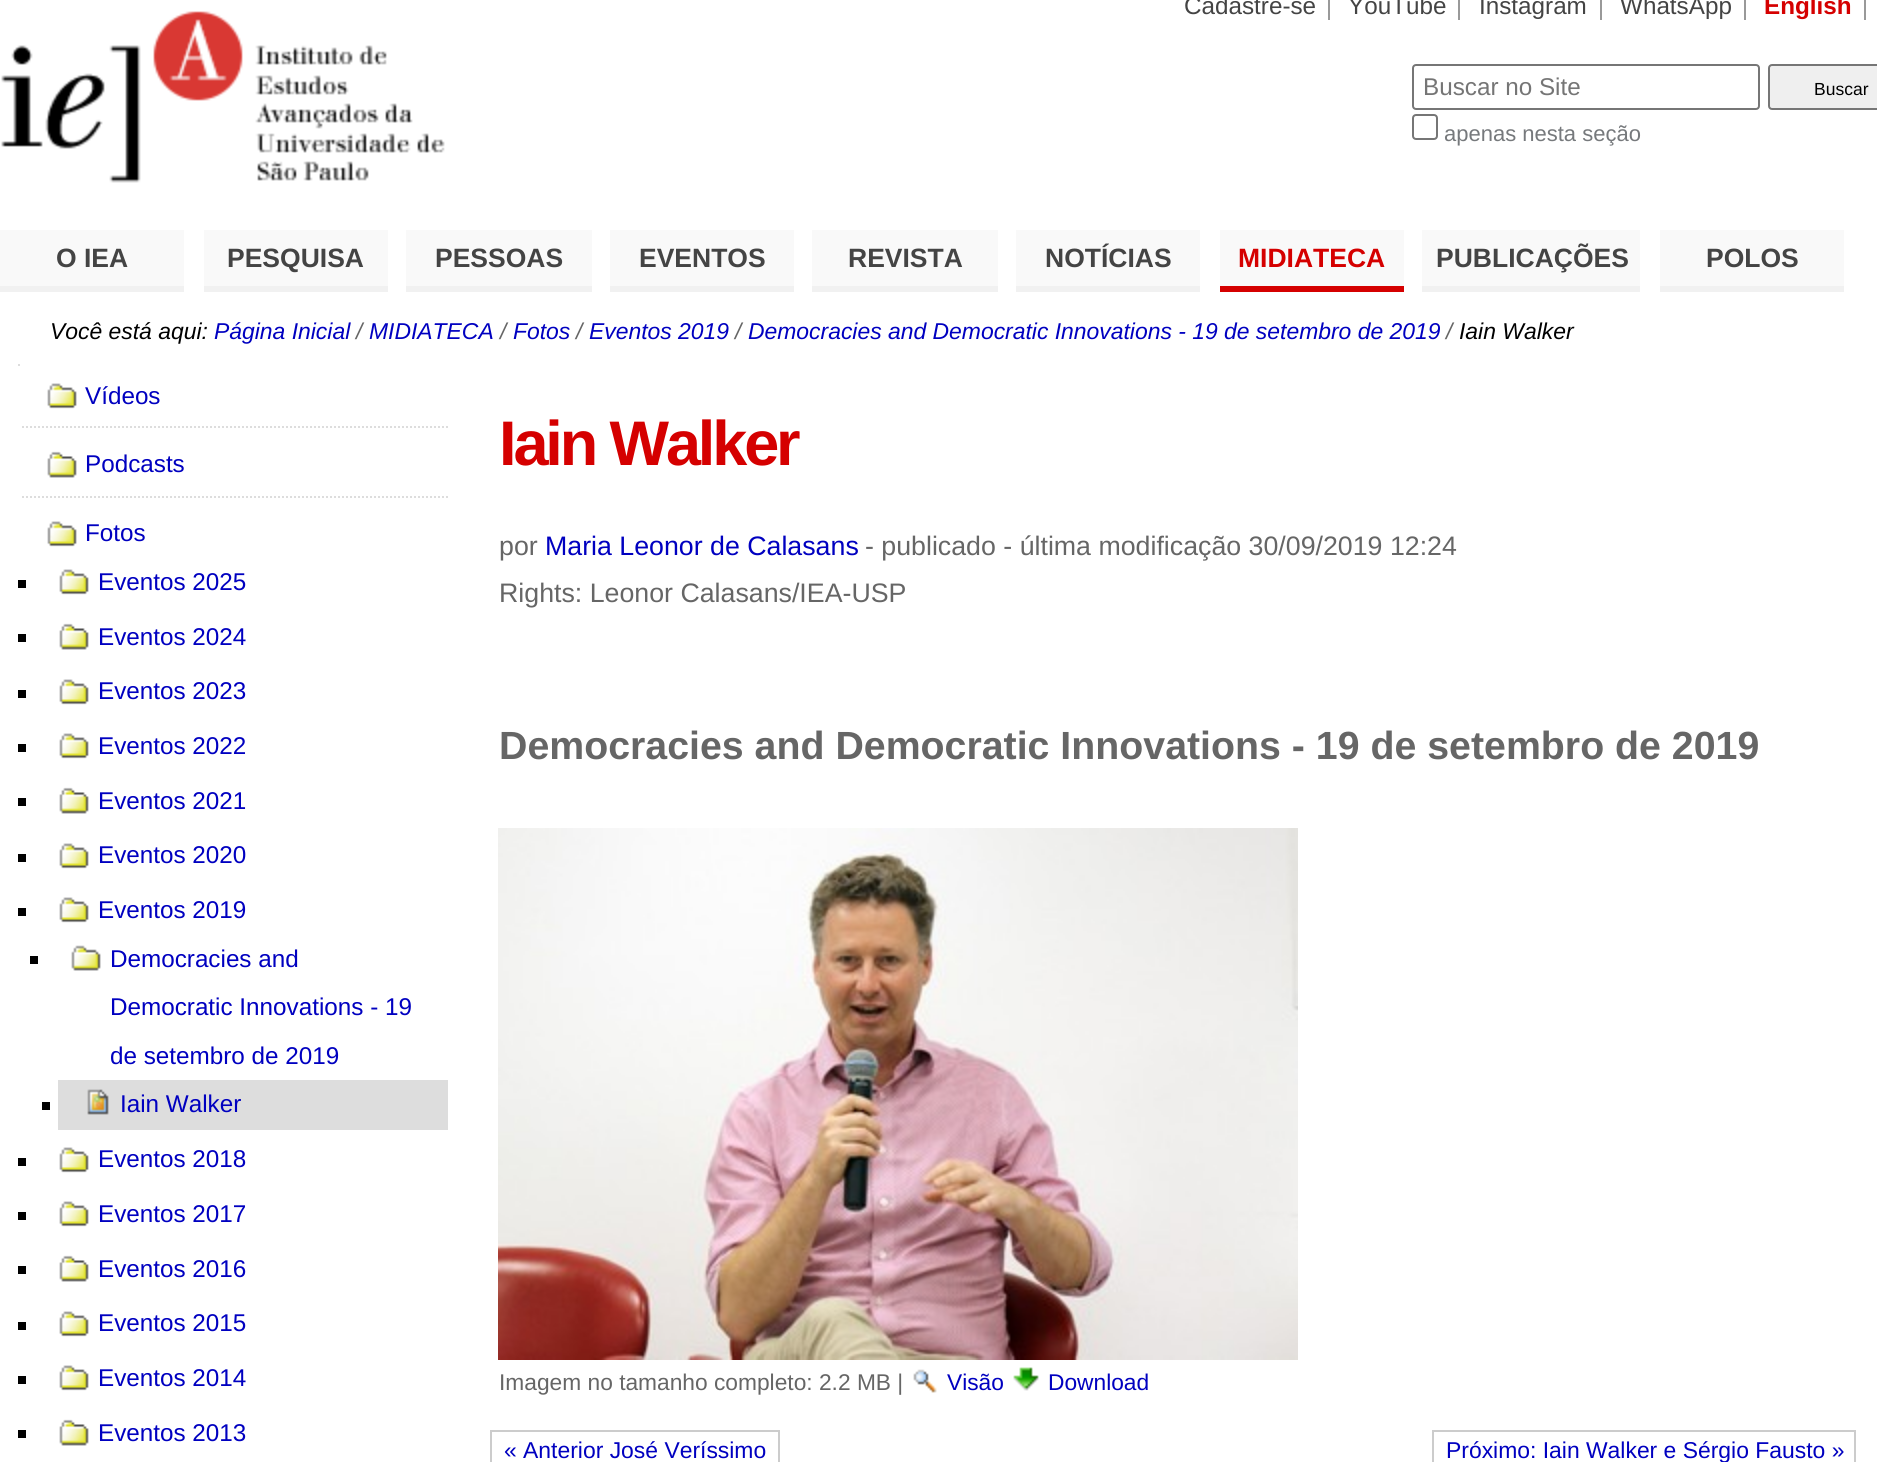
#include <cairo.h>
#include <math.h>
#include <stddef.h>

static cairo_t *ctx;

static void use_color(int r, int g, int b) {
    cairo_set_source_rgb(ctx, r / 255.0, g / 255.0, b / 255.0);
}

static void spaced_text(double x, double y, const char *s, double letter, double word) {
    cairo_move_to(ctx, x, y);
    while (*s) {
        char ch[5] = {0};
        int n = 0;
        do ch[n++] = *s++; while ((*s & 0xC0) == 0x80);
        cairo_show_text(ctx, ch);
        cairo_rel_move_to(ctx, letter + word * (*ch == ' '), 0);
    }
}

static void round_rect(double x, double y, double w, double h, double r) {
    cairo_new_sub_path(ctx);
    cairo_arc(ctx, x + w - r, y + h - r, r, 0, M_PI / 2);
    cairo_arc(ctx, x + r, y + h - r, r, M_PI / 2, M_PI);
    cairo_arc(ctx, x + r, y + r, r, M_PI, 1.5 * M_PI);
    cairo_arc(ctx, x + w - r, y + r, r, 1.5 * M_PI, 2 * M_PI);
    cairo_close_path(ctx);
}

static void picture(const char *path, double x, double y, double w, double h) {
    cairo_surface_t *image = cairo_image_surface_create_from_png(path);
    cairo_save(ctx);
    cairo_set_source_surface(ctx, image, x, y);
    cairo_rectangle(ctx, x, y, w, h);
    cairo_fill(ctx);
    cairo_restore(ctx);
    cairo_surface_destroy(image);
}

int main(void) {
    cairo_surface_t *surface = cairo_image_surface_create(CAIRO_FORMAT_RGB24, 1877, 1462);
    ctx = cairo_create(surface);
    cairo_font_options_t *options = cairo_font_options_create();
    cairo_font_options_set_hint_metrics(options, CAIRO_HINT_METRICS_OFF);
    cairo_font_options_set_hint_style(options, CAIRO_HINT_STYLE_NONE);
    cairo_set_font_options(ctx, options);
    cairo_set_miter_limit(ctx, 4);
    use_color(255, 255, 255);
    cairo_paint(ctx);
    picture("img1.png", 1, 11, 444, 172);
    cairo_select_font_face(ctx, "Liberation Sans", CAIRO_FONT_SLANT_NORMAL, CAIRO_FONT_WEIGHT_NORMAL);
    cairo_set_font_size(ctx, 24.25);
    use_color(68, 68, 68);
    cairo_move_to(ctx, 1184, 14);
    cairo_show_text(ctx, "Cadastre-se");
    use_color(153, 153, 153);
    cairo_rectangle(ctx, 1328, 0, 2, 20);
    cairo_fill(ctx);
    use_color(68, 68, 68);
    cairo_move_to(ctx, 1348, 14);
    cairo_show_text(ctx, "YouTube");
    use_color(153, 153, 153);
    cairo_rectangle(ctx, 1458, 0, 2, 20);
    cairo_fill(ctx);
    use_color(68, 68, 68);
    cairo_move_to(ctx, 1479, 14);
    cairo_show_text(ctx, "Instagram");
    use_color(153, 153, 153);
    cairo_rectangle(ctx, 1600, 0, 2, 20);
    cairo_fill(ctx);
    use_color(68, 68, 68);
    cairo_move_to(ctx, 1620, 14);
    cairo_show_text(ctx, "WhatsApp");
    use_color(153, 153, 153);
    cairo_rectangle(ctx, 1744, 0, 2, 20);
    cairo_fill(ctx);
    cairo_select_font_face(ctx, "Liberation Sans", CAIRO_FONT_SLANT_NORMAL, CAIRO_FONT_WEIGHT_BOLD);
    use_color(213, 0, 0);
    cairo_move_to(ctx, 1764, 14);
    cairo_show_text(ctx, "English");
    use_color(153, 153, 153);
    cairo_rectangle(ctx, 1864, 0, 2, 20);
    cairo_fill(ctx);
    round_rect(1413, 65, 346, 44, 3);
    use_color(118, 118, 118);
    cairo_stroke(ctx);
    cairo_select_font_face(ctx, "Liberation Sans", CAIRO_FONT_SLANT_NORMAL, CAIRO_FONT_WEIGHT_NORMAL);
    use_color(117, 117, 117);
    cairo_move_to(ctx, 1423, 95);
    cairo_show_text(ctx, "Buscar no Site");
    use_color(239, 239, 239);
    round_rect(1769, 65, 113, 44, 3);
    cairo_fill_preserve(ctx);
    use_color(118, 118, 118);
    cairo_stroke(ctx);
    cairo_set_font_size(ctx, 17.5);
    use_color(0, 0, 0);
    cairo_move_to(ctx, 1814, 95);
    cairo_show_text(ctx, "Buscar");
    round_rect(1413, 115, 24, 24, 3);
    use_color(118, 118, 118);
    cairo_stroke(ctx);
    cairo_set_font_size(ctx, 22);
    use_color(118, 121, 124);
    cairo_move_to(ctx, 1444, 141);
    cairo_show_text(ctx, "apenas nesta seção");
    use_color(249, 249, 249);
    cairo_rectangle(ctx, 0, 230, 184, 56);
    cairo_fill(ctx);
    use_color(241, 241, 241);
    cairo_rectangle(ctx, 0, 286, 184, 6);
    cairo_fill(ctx);
    cairo_select_font_face(ctx, "Liberation Sans", CAIRO_FONT_SLANT_NORMAL, CAIRO_FONT_WEIGHT_BOLD);
    cairo_set_font_size(ctx, 26.5);
    use_color(68, 68, 68);
    cairo_move_to(ctx, 56, 267);
    cairo_show_text(ctx, "O IEA");
    use_color(249, 249, 249);
    cairo_rectangle(ctx, 204, 230, 184, 56);
    cairo_fill(ctx);
    use_color(241, 241, 241);
    cairo_rectangle(ctx, 204, 286, 184, 6);
    cairo_fill(ctx);
    use_color(68, 68, 68);
    cairo_move_to(ctx, 227, 267);
    cairo_show_text(ctx, "PESQUISA");
    use_color(249, 249, 249);
    cairo_rectangle(ctx, 406, 230, 186, 56);
    cairo_fill(ctx);
    use_color(241, 241, 241);
    cairo_rectangle(ctx, 406, 286, 186, 6);
    cairo_fill(ctx);
    use_color(68, 68, 68);
    cairo_move_to(ctx, 435, 267);
    cairo_show_text(ctx, "PESSOAS");
    use_color(249, 249, 249);
    cairo_rectangle(ctx, 610, 230, 184, 56);
    cairo_fill(ctx);
    use_color(241, 241, 241);
    cairo_rectangle(ctx, 610, 286, 184, 6);
    cairo_fill(ctx);
    use_color(68, 68, 68);
    cairo_move_to(ctx, 639, 267);
    cairo_show_text(ctx, "EVENTOS");
    use_color(249, 249, 249);
    cairo_rectangle(ctx, 812, 230, 186, 56);
    cairo_fill(ctx);
    use_color(241, 241, 241);
    cairo_rectangle(ctx, 812, 286, 186, 6);
    cairo_fill(ctx);
    use_color(68, 68, 68);
    cairo_move_to(ctx, 848, 267);
    cairo_show_text(ctx, "REVISTA");
    use_color(249, 249, 249);
    cairo_rectangle(ctx, 1016, 230, 184, 56);
    cairo_fill(ctx);
    use_color(241, 241, 241);
    cairo_rectangle(ctx, 1016, 286, 184, 6);
    cairo_fill(ctx);
    use_color(68, 68, 68);
    cairo_move_to(ctx, 1045, 267);
    cairo_show_text(ctx, "NOTÍCIAS");
    use_color(249, 249, 249);
    cairo_rectangle(ctx, 1220, 230, 184, 56);
    cairo_fill(ctx);
    use_color(213, 0, 0);
    cairo_rectangle(ctx, 1220, 286, 184, 6);
    cairo_fill(ctx);
    cairo_move_to(ctx, 1238, 267);
    cairo_show_text(ctx, "MIDIATECA");
    use_color(249, 249, 249);
    cairo_rectangle(ctx, 1422, 230, 218, 56);
    cairo_fill(ctx);
    use_color(241, 241, 241);
    cairo_rectangle(ctx, 1422, 286, 218, 6);
    cairo_fill(ctx);
    use_color(68, 68, 68);
    cairo_move_to(ctx, 1436, 267);
    cairo_show_text(ctx, "PUBLICAÇÕES");
    use_color(249, 249, 249);
    cairo_rectangle(ctx, 1660, 230, 184, 56);
    cairo_fill(ctx);
    use_color(241, 241, 241);
    cairo_rectangle(ctx, 1660, 286, 184, 6);
    cairo_fill(ctx);
    use_color(68, 68, 68);
    cairo_move_to(ctx, 1706, 267);
    cairo_show_text(ctx, "POLOS");
    cairo_select_font_face(ctx, "Liberation Sans", CAIRO_FONT_SLANT_ITALIC, CAIRO_FONT_WEIGHT_NORMAL);
    cairo_set_font_size(ctx, 22.9);
    use_color(0, 0, 0);
    cairo_move_to(ctx, 50, 339);
    cairo_show_text(ctx, "Você está aqui:");
    use_color(0, 0, 192);
    cairo_move_to(ctx, 214, 339);
    cairo_show_text(ctx, "Página Inicial");
    use_color(102, 102, 102);
    cairo_move_to(ctx, 356, 339);
    cairo_show_text(ctx, "/");
    use_color(0, 0, 192);
    cairo_move_to(ctx, 369, 339);
    cairo_show_text(ctx, "MIDIATECA");
    use_color(102, 102, 102);
    cairo_move_to(ctx, 500, 339);
    cairo_show_text(ctx, "/");
    use_color(0, 0, 192);
    cairo_move_to(ctx, 513, 339);
    cairo_show_text(ctx, "Fotos");
    use_color(102, 102, 102);
    cairo_move_to(ctx, 576, 339);
    cairo_show_text(ctx, "/");
    use_color(0, 0, 192);
    cairo_move_to(ctx, 589, 339);
    cairo_show_text(ctx, "Eventos 2019");
    use_color(102, 102, 102);
    cairo_move_to(ctx, 735, 339);
    cairo_show_text(ctx, "/");
    use_color(0, 0, 192);
    cairo_move_to(ctx, 748, 339);
    cairo_show_text(ctx, "Democracies and Democratic Innovations - 19 de setembro de 2019");
    use_color(102, 102, 102);
    cairo_move_to(ctx, 1446, 339);
    cairo_show_text(ctx, "/");
    use_color(0, 0, 0);
    cairo_move_to(ctx, 1459, 339);
    cairo_show_text(ctx, "Iain Walker");
    use_color(221, 221, 221);
    cairo_rectangle(ctx, 18, 364, 2, 2);
    cairo_fill(ctx);
    cairo_new_path(ctx);
    cairo_move_to(ctx, 22, 427);
    cairo_line_to(ctx, 448, 427);
    cairo_set_dash(ctx, (double[]){2, 2}, 2, 0);
    cairo_stroke(ctx);
    picture("img2.png", 47, 383, 30, 26);
    cairo_select_font_face(ctx, "Liberation Sans", CAIRO_FONT_SLANT_NORMAL, CAIRO_FONT_WEIGHT_NORMAL);
    cairo_set_font_size(ctx, 24.25);
    use_color(0, 0, 192);
    cairo_move_to(ctx, 85, 404);
    cairo_show_text(ctx, "Vídeos");
    cairo_new_path(ctx);
    cairo_move_to(ctx, 22, 497);
    cairo_line_to(ctx, 448, 497);
    use_color(221, 221, 221);
    cairo_stroke(ctx);
    picture("img3.png", 47, 451, 30, 27);
    use_color(0, 0, 192);
    cairo_move_to(ctx, 85, 472);
    cairo_show_text(ctx, "Podcasts");
    picture("img2.png", 47, 521, 30, 26);
    cairo_move_to(ctx, 85, 541);
    cairo_show_text(ctx, "Fotos");
    use_color(0, 0, 0);
    cairo_rectangle(ctx, 18, 580, 8, 8);
    cairo_fill(ctx);
    picture("img2.png", 59, 569, 30, 26);
    use_color(0, 0, 192);
    cairo_move_to(ctx, 98, 590);
    cairo_show_text(ctx, "Eventos 2025");
    use_color(0, 0, 0);
    cairo_rectangle(ctx, 18, 634, 8, 8);
    cairo_fill(ctx);
    picture("img3.png", 59, 623, 30, 27);
    use_color(0, 0, 192);
    cairo_move_to(ctx, 98, 645);
    cairo_show_text(ctx, "Eventos 2024");
    use_color(0, 0, 0);
    cairo_rectangle(ctx, 18, 690, 8, 8);
    cairo_fill(ctx);
    picture("img2.png", 59, 679, 30, 26);
    use_color(0, 0, 192);
    cairo_move_to(ctx, 98, 699);
    cairo_show_text(ctx, "Eventos 2023");
    use_color(0, 0, 0);
    cairo_rectangle(ctx, 18, 744, 8, 8);
    cairo_fill(ctx);
    picture("img2.png", 59, 733, 30, 26);
    use_color(0, 0, 192);
    cairo_move_to(ctx, 98, 754);
    cairo_show_text(ctx, "Eventos 2022");
    use_color(0, 0, 0);
    cairo_rectangle(ctx, 18, 798, 8, 8);
    cairo_fill(ctx);
    picture("img3.png", 59, 787, 30, 27);
    use_color(0, 0, 192);
    cairo_move_to(ctx, 98, 809);
    cairo_show_text(ctx, "Eventos 2021");
    use_color(0, 0, 0);
    cairo_rectangle(ctx, 18, 854, 8, 8);
    cairo_fill(ctx);
    picture("img2.png", 59, 843, 30, 26);
    use_color(0, 0, 192);
    cairo_move_to(ctx, 98, 863);
    cairo_show_text(ctx, "Eventos 2020");
    use_color(0, 0, 0);
    cairo_rectangle(ctx, 18, 908, 8, 8);
    cairo_fill(ctx);
    picture("img2.png", 59, 897, 30, 26);
    use_color(0, 0, 192);
    cairo_move_to(ctx, 98, 918);
    cairo_show_text(ctx, "Eventos 2019");
    use_color(0, 0, 0);
    cairo_rectangle(ctx, 30, 956, 8, 8);
    cairo_fill(ctx);
    picture("img4.png", 71, 945, 30, 26);
    use_color(0, 0, 192);
    cairo_move_to(ctx, 110, 967);
    cairo_show_text(ctx, "Democracies and");
    cairo_move_to(ctx, 110, 1015);
    cairo_show_text(ctx, "Democratic Innovations - 19");
    cairo_move_to(ctx, 110, 1064);
    cairo_show_text(ctx, "de setembro de 2019");
    use_color(0, 0, 0);
    cairo_rectangle(ctx, 42, 1102, 8, 8);
    cairo_fill(ctx);
    use_color(221, 221, 221);
    cairo_rectangle(ctx, 58, 1080, 390, 50);
    cairo_fill(ctx);
    picture("img5.png", 87, 1089, 22, 26);
    use_color(0, 0, 192);
    cairo_move_to(ctx, 120, 1112);
    cairo_show_text(ctx, "Iain Walker");
    use_color(0, 0, 0);
    cairo_rectangle(ctx, 18, 1158, 8, 8);
    cairo_fill(ctx);
    picture("img2.png", 59, 1147, 30, 26);
    use_color(0, 0, 192);
    cairo_move_to(ctx, 98, 1167);
    cairo_show_text(ctx, "Eventos 2018");
    use_color(0, 0, 0);
    cairo_rectangle(ctx, 18, 1212, 8, 8);
    cairo_fill(ctx);
    picture("img2.png", 59, 1201, 30, 26);
    use_color(0, 0, 192);
    cairo_move_to(ctx, 98, 1222);
    cairo_show_text(ctx, "Eventos 2017");
    use_color(0, 0, 0);
    cairo_rectangle(ctx, 18, 1266, 8, 8);
    cairo_fill(ctx);
    picture("img3.png", 59, 1255, 30, 27);
    use_color(0, 0, 192);
    cairo_move_to(ctx, 98, 1277);
    cairo_show_text(ctx, "Eventos 2016");
    use_color(0, 0, 0);
    cairo_rectangle(ctx, 18, 1322, 8, 8);
    cairo_fill(ctx);
    picture("img2.png", 59, 1311, 30, 26);
    use_color(0, 0, 192);
    cairo_move_to(ctx, 98, 1331);
    cairo_show_text(ctx, "Eventos 2015");
    use_color(0, 0, 0);
    cairo_rectangle(ctx, 18, 1376, 8, 8);
    cairo_fill(ctx);
    picture("img2.png", 59, 1365, 30, 26);
    use_color(0, 0, 192);
    cairo_move_to(ctx, 98, 1386);
    cairo_show_text(ctx, "Eventos 2014");
    use_color(0, 0, 0);
    cairo_rectangle(ctx, 18, 1430, 8, 8);
    cairo_fill(ctx);
    picture("img3.png", 59, 1419, 30, 27);
    use_color(0, 0, 192);
    cairo_move_to(ctx, 98, 1441);
    cairo_show_text(ctx, "Eventos 2013");
    cairo_select_font_face(ctx, "Liberation Sans", CAIRO_FONT_SLANT_NORMAL, CAIRO_FONT_WEIGHT_BOLD);
    cairo_set_font_size(ctx, 63);
    use_color(213, 0, 0);
    spaced_text(499, 465, "Iain Walker", -3.1, 0);
    cairo_select_font_face(ctx, "Liberation Sans", CAIRO_FONT_SLANT_NORMAL, CAIRO_FONT_WEIGHT_NORMAL);
    cairo_set_font_size(ctx, 26.75);
    use_color(102, 102, 102);
    cairo_move_to(ctx, 499, 555);
    cairo_show_text(ctx, "por");
    use_color(0, 0, 192);
    cairo_move_to(ctx, 545, 555);
    cairo_show_text(ctx, "Maria Leonor de Calasans");
    use_color(102, 102, 102);
    cairo_move_to(ctx, 865, 555);
    cairo_show_text(ctx, "- publicado - última modificação 30/09/2019 12:24");
    cairo_move_to(ctx, 499, 602);
    cairo_show_text(ctx, "Rights: Leonor Calasans/IEA-USP");
    cairo_select_font_face(ctx, "Liberation Sans", CAIRO_FONT_SLANT_NORMAL, CAIRO_FONT_WEIGHT_BOLD);
    cairo_set_font_size(ctx, 39.3);
    cairo_move_to(ctx, 499, 759);
    cairo_show_text(ctx, "Democracies and Democratic Innovations - 19 de setembro de 2019");
    picture("img6.png", 498, 828, 800, 532);
    cairo_select_font_face(ctx, "Liberation Sans", CAIRO_FONT_SLANT_NORMAL, CAIRO_FONT_WEIGHT_NORMAL);
    cairo_set_font_size(ctx, 22.75);
    cairo_move_to(ctx, 499, 1390);
    cairo_show_text(ctx, "Imagem no tamanho completo: 2.2 MB |");
    picture("img7.png", 913, 1369, 24, 24);
    use_color(0, 0, 192);
    cairo_move_to(ctx, 947, 1390);
    cairo_show_text(ctx, "Visão");
    picture("img8.png", 1013, 1367, 26, 24);
    cairo_move_to(ctx, 1048, 1390);
    cairo_show_text(ctx, "Download");
    cairo_rectangle(ctx, 491, 1431, 288, 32);
    use_color(204, 204, 204);
    cairo_set_dash(ctx, NULL, 0, 0);
    cairo_stroke(ctx);
    cairo_set_font_size(ctx, 22.9);
    use_color(0, 0, 192);
    cairo_move_to(ctx, 504, 1458);
    cairo_show_text(ctx, "« Anterior José Veríssimo");
    cairo_rectangle(ctx, 1433, 1431, 422, 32);
    use_color(204, 204, 204);
    cairo_stroke(ctx);
    use_color(0, 0, 192);
    cairo_move_to(ctx, 1446, 1458);
    cairo_show_text(ctx, "Próximo: Iain Walker e Sérgio Fausto »");
    cairo_surface_write_to_png(surface, "result.png");
    cairo_font_options_destroy(options);
    cairo_destroy(ctx);
    cairo_surface_destroy(surface);
    return 0;
}
